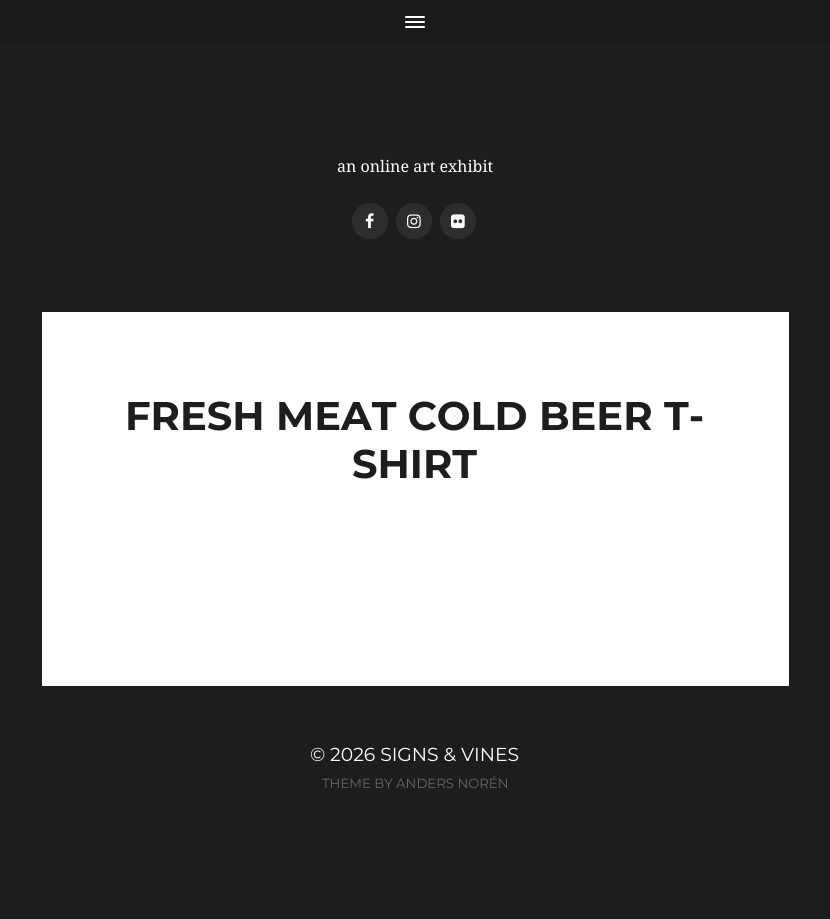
#include <cairo.h>
#include <math.h>
#include <stddef.h>

static cairo_t *ctx;

static void use_color(int r, int g, int b) {
    cairo_set_source_rgb(ctx, r / 255.0, g / 255.0, b / 255.0);
}

static void round_rect(double x, double y, double w, double h, double r) {
    cairo_new_sub_path(ctx);
    cairo_arc(ctx, x + w - r, y + h - r, r, 0, M_PI / 2);
    cairo_arc(ctx, x + r, y + h - r, r, M_PI / 2, M_PI);
    cairo_arc(ctx, x + r, y + r, r, M_PI, 1.5 * M_PI);
    cairo_arc(ctx, x + w - r, y + r, r, 1.5 * M_PI, 2 * M_PI);
    cairo_close_path(ctx);
}

static void picture(const char *path, double x, double y, double w, double h) {
    cairo_surface_t *image = cairo_image_surface_create_from_png(path);
    cairo_save(ctx);
    cairo_set_source_surface(ctx, image, x, y);
    cairo_rectangle(ctx, x, y, w, h);
    cairo_fill(ctx);
    cairo_restore(ctx);
    cairo_surface_destroy(image);
}

int main(void) {
    cairo_surface_t *surface = cairo_image_surface_create(CAIRO_FORMAT_RGB24, 830, 919);
    ctx = cairo_create(surface);
    cairo_font_options_t *options = cairo_font_options_create();
    cairo_font_options_set_hint_metrics(options, CAIRO_HINT_METRICS_OFF);
    cairo_font_options_set_hint_style(options, CAIRO_HINT_STYLE_NONE);
    cairo_set_font_options(ctx, options);
    cairo_set_miter_limit(ctx, 4);
    use_color(29, 29, 29);
    cairo_paint(ctx);
    use_color(26, 26, 26);
    cairo_rectangle(ctx, 0, 0, 830, 44);
    cairo_fill(ctx);
    use_color(255, 255, 255);
    round_rect(405, 16, 20, 2, 1);
    cairo_fill(ctx);
    round_rect(405, 21, 20, 2, 1);
    cairo_fill(ctx);
    round_rect(405, 26, 20, 2, 1);
    cairo_fill(ctx);
    cairo_select_font_face(ctx, "Droid Serif", CAIRO_FONT_SLANT_NORMAL, CAIRO_FONT_WEIGHT_NORMAL);
    cairo_set_font_size(ctx, 16);
    cairo_move_to(ctx, 337, 172);
    cairo_show_text(ctx, "an online art exhibit");
    use_color(45, 45, 45);
    cairo_new_path(ctx);
    cairo_arc(ctx, 370, 221, 18, 0, 2 * M_PI);
    cairo_fill(ctx);
    picture("img1.png", 365, 213, 9, 16);
    cairo_arc(ctx, 414, 221, 18, 0, 2 * M_PI);
    cairo_fill(ctx);
    picture("img2.png", 407, 214, 14, 15);
    cairo_arc(ctx, 458, 221, 18, 0, 2 * M_PI);
    cairo_fill(ctx);
    picture("img3.png", 451, 214, 14, 15);
    use_color(255, 255, 255);
    cairo_rectangle(ctx, 42, 312, 747, 374);
    cairo_fill(ctx);
    cairo_select_font_face(ctx, "Montserrat", CAIRO_FONT_SLANT_NORMAL, CAIRO_FONT_WEIGHT_BOLD);
    cairo_set_font_size(ctx, 40);
    use_color(29, 29, 29);
    cairo_move_to(ctx, 125, 430);
    cairo_show_text(ctx, "FRESH MEAT COLD BEER T-");
    cairo_move_to(ctx, 352, 478);
    cairo_show_text(ctx, "SHIRT");
    cairo_select_font_face(ctx, "Montserrat", CAIRO_FONT_SLANT_NORMAL, CAIRO_FONT_WEIGHT_NORMAL);
    cairo_set_font_size(ctx, 18.75);
    use_color(255, 255, 255);
    cairo_move_to(ctx, 310, 761);
    cairo_show_text(ctx, "© 2026 SIGNS & VINES");
    cairo_set_font_size(ctx, 13.25);
    use_color(102, 102, 102);
    cairo_move_to(ctx, 322, 788);
    cairo_show_text(ctx, "THEME BY ANDERS NORÉN");
    cairo_surface_write_to_png(surface, "result.png");
    cairo_font_options_destroy(options);
    cairo_destroy(ctx);
    cairo_surface_destroy(surface);
    return 0;
}
